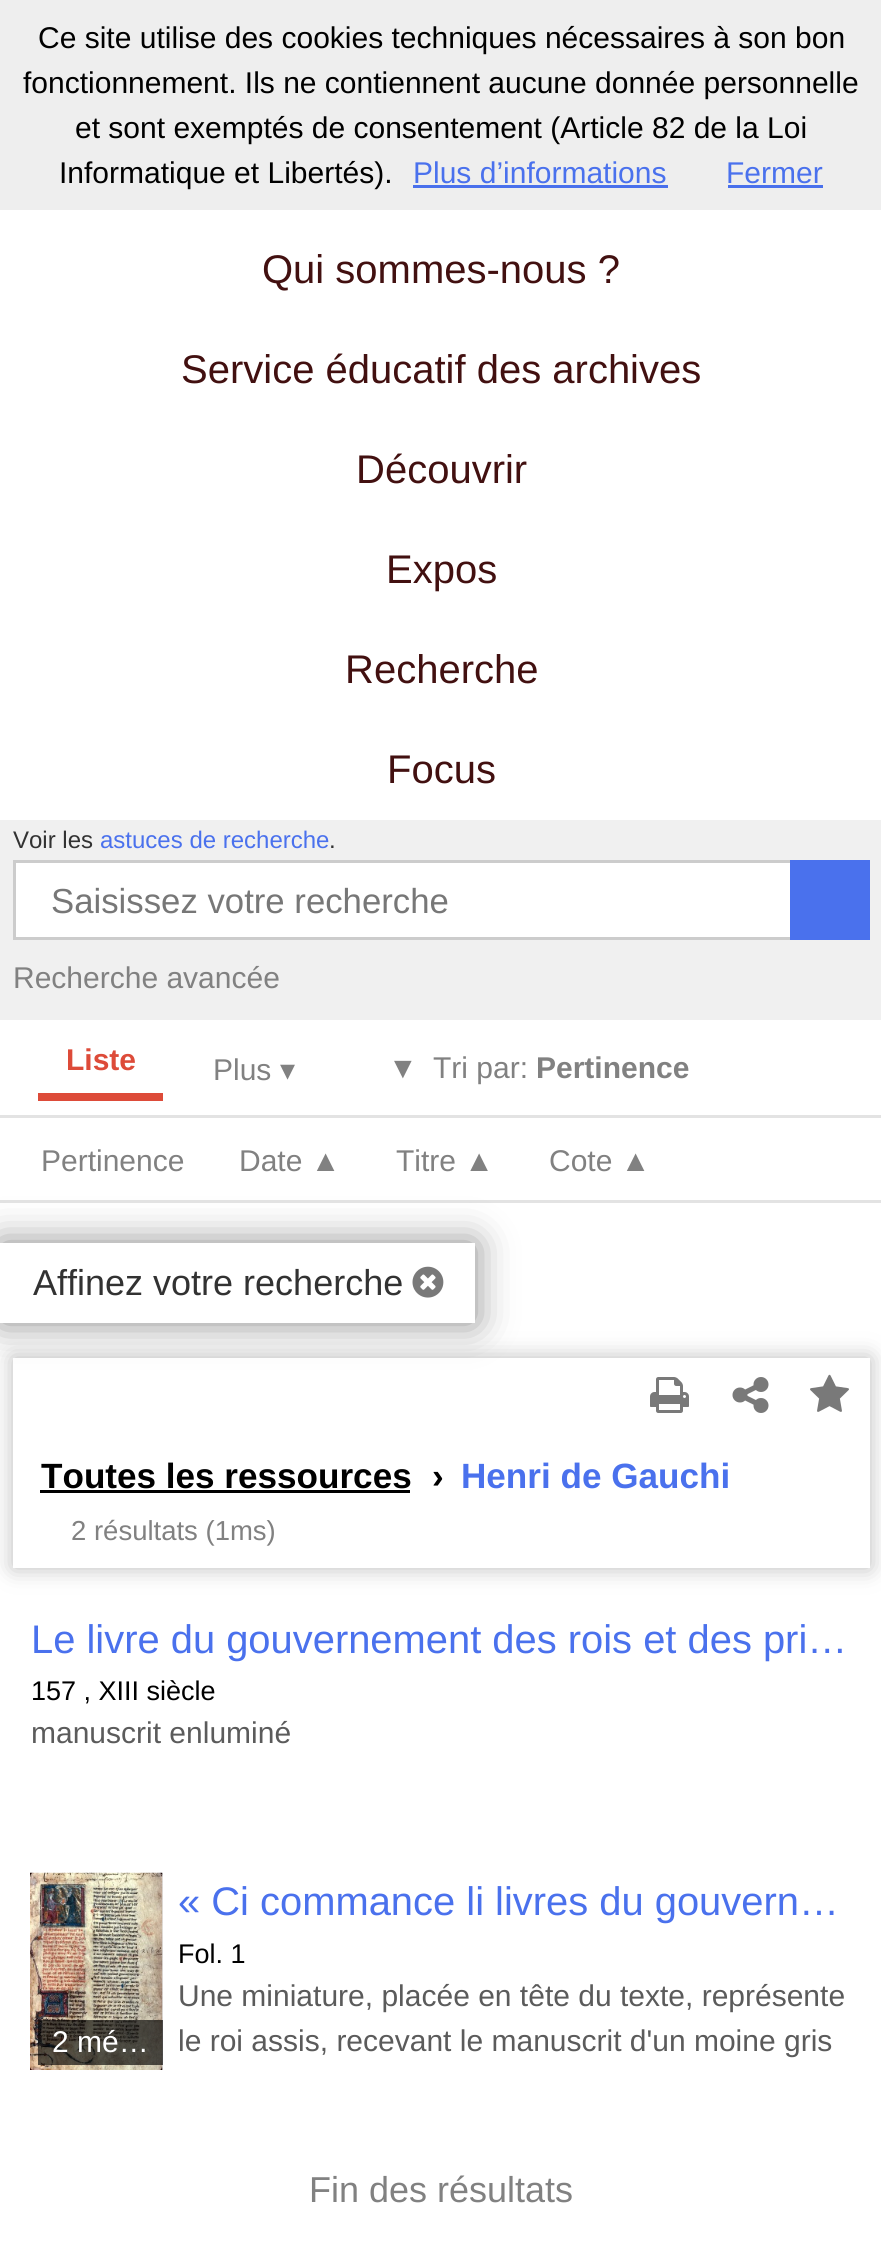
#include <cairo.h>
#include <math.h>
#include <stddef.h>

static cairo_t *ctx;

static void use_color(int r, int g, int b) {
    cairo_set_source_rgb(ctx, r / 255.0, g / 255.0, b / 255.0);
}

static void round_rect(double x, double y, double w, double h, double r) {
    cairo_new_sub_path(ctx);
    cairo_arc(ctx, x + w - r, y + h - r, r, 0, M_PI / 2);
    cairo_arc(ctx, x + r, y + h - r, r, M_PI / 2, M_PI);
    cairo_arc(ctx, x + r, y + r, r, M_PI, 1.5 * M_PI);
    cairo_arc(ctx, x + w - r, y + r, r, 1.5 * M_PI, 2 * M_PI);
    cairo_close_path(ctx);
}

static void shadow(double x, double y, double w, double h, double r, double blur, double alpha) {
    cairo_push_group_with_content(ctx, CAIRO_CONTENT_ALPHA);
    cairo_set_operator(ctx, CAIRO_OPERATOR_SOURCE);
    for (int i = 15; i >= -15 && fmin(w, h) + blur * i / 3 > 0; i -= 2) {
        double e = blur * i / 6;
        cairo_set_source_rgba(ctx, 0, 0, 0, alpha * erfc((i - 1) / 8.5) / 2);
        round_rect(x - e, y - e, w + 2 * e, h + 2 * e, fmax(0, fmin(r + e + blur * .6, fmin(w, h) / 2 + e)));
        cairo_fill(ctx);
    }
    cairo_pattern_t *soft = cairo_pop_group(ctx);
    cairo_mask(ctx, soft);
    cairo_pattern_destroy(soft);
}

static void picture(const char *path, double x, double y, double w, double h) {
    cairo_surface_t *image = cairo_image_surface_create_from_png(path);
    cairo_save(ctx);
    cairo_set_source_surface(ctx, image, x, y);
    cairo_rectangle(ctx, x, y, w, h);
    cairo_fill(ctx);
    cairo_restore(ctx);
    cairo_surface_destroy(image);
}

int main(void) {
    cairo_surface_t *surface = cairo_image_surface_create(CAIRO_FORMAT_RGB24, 881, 2254);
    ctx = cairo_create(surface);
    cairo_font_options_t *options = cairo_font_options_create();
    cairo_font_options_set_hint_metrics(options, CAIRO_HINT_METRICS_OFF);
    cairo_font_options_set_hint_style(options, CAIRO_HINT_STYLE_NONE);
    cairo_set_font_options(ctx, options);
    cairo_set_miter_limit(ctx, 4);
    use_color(255, 255, 255);
    cairo_paint(ctx);
    use_color(238, 238, 238);
    cairo_rectangle(ctx, 0, 0, 881, 210);
    cairo_fill(ctx);
    cairo_select_font_face(ctx, "Liberation Sans", CAIRO_FONT_SLANT_NORMAL, CAIRO_FONT_WEIGHT_NORMAL);
    cairo_set_font_size(ctx, 30);
    use_color(0, 0, 0);
    cairo_move_to(ctx, 38, 48);
    cairo_show_text(ctx, "Ce site utilise des cookies techniques nécessaires à son bon");
    cairo_move_to(ctx, 23, 93);
    cairo_show_text(ctx, "fonctionnement. Ils ne contiennent aucune donnée personnelle");
    cairo_move_to(ctx, 75, 138);
    cairo_show_text(ctx, "et sont exemptés de consentement (Article 82 de la Loi");
    cairo_move_to(ctx, 59, 183);
    cairo_show_text(ctx, "Informatique et Libertés).");
    use_color(74, 113, 237);
    cairo_move_to(ctx, 413, 183);
    cairo_show_text(ctx, "Plus d’informations");
    use_color(73, 112, 236);
    cairo_rectangle(ctx, 413, 185, 255, 3);
    cairo_fill(ctx);
    use_color(74, 113, 237);
    cairo_move_to(ctx, 726, 183);
    cairo_show_text(ctx, "Fermer");
    use_color(73, 112, 236);
    cairo_rectangle(ctx, 728, 185, 95, 3);
    cairo_fill(ctx);
    cairo_set_font_size(ctx, 40);
    use_color(66, 16, 16);
    cairo_move_to(ctx, 262, 283);
    cairo_show_text(ctx, "Qui sommes-nous ?");
    cairo_move_to(ctx, 181, 383);
    cairo_show_text(ctx, "Service éducatif des archives");
    cairo_move_to(ctx, 356, 483);
    cairo_show_text(ctx, "Découvrir");
    cairo_move_to(ctx, 386, 583);
    cairo_show_text(ctx, "Expos");
    cairo_move_to(ctx, 345, 683);
    cairo_show_text(ctx, "Recherche");
    cairo_move_to(ctx, 387, 783);
    cairo_show_text(ctx, "Focus");
    use_color(240, 240, 240);
    cairo_rectangle(ctx, 0, 820, 881, 200);
    cairo_fill(ctx);
    cairo_set_font_size(ctx, 24);
    use_color(50, 50, 50);
    cairo_move_to(ctx, 13, 848);
    cairo_show_text(ctx, "Voir les");
    use_color(74, 113, 237);
    cairo_move_to(ctx, 100, 848);
    cairo_show_text(ctx, "astuces de recherche");
    use_color(50, 50, 50);
    cairo_move_to(ctx, 329, 848);
    cairo_show_text(ctx, ".");
    use_color(255, 255, 255);
    cairo_rectangle(ctx, 16, 863, 774, 74);
    cairo_fill(ctx);
    cairo_rectangle(ctx, 14.5, 861.5, 854, 77);
    use_color(204, 204, 204);
    cairo_set_line_width(ctx, 3);
    cairo_stroke(ctx);
    cairo_set_font_size(ctx, 34.75);
    use_color(119, 119, 119);
    cairo_move_to(ctx, 51, 913);
    cairo_show_text(ctx, "Saisissez votre recherche");
    use_color(74, 113, 237);
    cairo_rectangle(ctx, 790, 860, 80, 80);
    cairo_fill(ctx);
    cairo_set_font_size(ctx, 30);
    use_color(129, 129, 129);
    cairo_move_to(ctx, 13, 988);
    cairo_show_text(ctx, "Recherche avancée");
    use_color(227, 227, 227);
    cairo_rectangle(ctx, 0, 1200, 881, 3);
    cairo_fill(ctx);
    use_color(221, 75, 57);
    cairo_rectangle(ctx, 38, 1093, 125, 8);
    cairo_fill(ctx);
    cairo_select_font_face(ctx, "Liberation Sans", CAIRO_FONT_SLANT_NORMAL, CAIRO_FONT_WEIGHT_BOLD);
    cairo_move_to(ctx, 66, 1070);
    cairo_show_text(ctx, "Liste");
    cairo_select_font_face(ctx, "Liberation Sans", CAIRO_FONT_SLANT_NORMAL, CAIRO_FONT_WEIGHT_NORMAL);
    use_color(129, 129, 129);
    cairo_move_to(ctx, 213, 1080);
    cairo_show_text(ctx, "Plus");
    cairo_select_font_face(ctx, "DejaVu Sans", CAIRO_FONT_SLANT_NORMAL, CAIRO_FONT_WEIGHT_NORMAL);
    cairo_move_to(ctx, 280, 1080);
    cairo_show_text(ctx, "▾");
    cairo_select_font_face(ctx, "Liberation Sans", CAIRO_FONT_SLANT_NORMAL, CAIRO_FONT_WEIGHT_NORMAL);
    cairo_move_to(ctx, 388, 1078);
    cairo_show_text(ctx, "▼");
    cairo_move_to(ctx, 433, 1078);
    cairo_show_text(ctx, "Tri par:");
    cairo_select_font_face(ctx, "Liberation Sans", CAIRO_FONT_SLANT_NORMAL, CAIRO_FONT_WEIGHT_BOLD);
    cairo_move_to(ctx, 536, 1078);
    cairo_show_text(ctx, "Pertinence");
    use_color(227, 227, 227);
    cairo_rectangle(ctx, 0, 1115, 881, 3);
    cairo_fill(ctx);
    cairo_select_font_face(ctx, "Liberation Sans", CAIRO_FONT_SLANT_NORMAL, CAIRO_FONT_WEIGHT_NORMAL);
    use_color(129, 129, 129);
    cairo_move_to(ctx, 41, 1171);
    cairo_show_text(ctx, "Pertinence");
    cairo_move_to(ctx, 239, 1171);
    cairo_show_text(ctx, "Date ▲");
    cairo_move_to(ctx, 396, 1171);
    cairo_show_text(ctx, "Titre ▲");
    cairo_move_to(ctx, 549, 1171);
    cairo_show_text(ctx, "Cote ▲");
    use_color(187, 187, 187);
    shadow(13, 1358, 857, 210, 0, 11, 1);
    use_color(255, 255, 255);
    cairo_rectangle(ctx, 13, 1358, 857, 210);
    cairo_fill(ctx);
    use_color(136, 136, 136);
    shadow(0, 1243, 475, 80, 0, 19, 1);
    use_color(255, 255, 255);
    cairo_rectangle(ctx, 0, 1243, 475, 80);
    cairo_fill(ctx);
    cairo_set_font_size(ctx, 36);
    use_color(50, 50, 50);
    cairo_move_to(ctx, 33, 1295);
    cairo_show_text(ctx, "Affinez votre recherche");
    picture("img1.png", 412, 1266, 32, 32);
    picture("img2.png", 650, 1377, 39, 36);
    picture("img3.png", 732, 1377, 37, 36);
    picture("img4.png", 810, 1374, 39, 38);
    cairo_select_font_face(ctx, "Liberation Sans", CAIRO_FONT_SLANT_NORMAL, CAIRO_FONT_WEIGHT_BOLD);
    cairo_set_font_size(ctx, 35.1);
    use_color(0, 0, 0);
    cairo_move_to(ctx, 41, 1488);
    cairo_show_text(ctx, "Toutes les ressources");
    cairo_rectangle(ctx, 40, 1490, 370, 3);
    cairo_fill(ctx);
    cairo_move_to(ctx, 432, 1488);
    cairo_show_text(ctx, "›");
    use_color(74, 113, 237);
    cairo_move_to(ctx, 461, 1488);
    cairo_show_text(ctx, "Henri de Gauchi");
    cairo_select_font_face(ctx, "Liberation Sans", CAIRO_FONT_SLANT_NORMAL, CAIRO_FONT_WEIGHT_NORMAL);
    cairo_set_font_size(ctx, 27.5);
    use_color(129, 129, 129);
    cairo_move_to(ctx, 71, 1540);
    cairo_show_text(ctx, "2 résultats (1ms)");
    cairo_set_font_size(ctx, 39.9);
    use_color(74, 113, 237);
    cairo_move_to(ctx, 31, 1653);
    cairo_show_text(ctx, "Le livre du gouvernement des rois et des pri…");
    cairo_set_font_size(ctx, 27);
    use_color(0, 0, 0);
    cairo_move_to(ctx, 31, 1700);
    cairo_show_text(ctx, "157 , XIII siècle");
    cairo_set_font_size(ctx, 30);
    use_color(91, 91, 91);
    cairo_move_to(ctx, 31, 1743);
    cairo_show_text(ctx, "manuscrit enluminé");
    cairo_set_font_size(ctx, 39.9);
    use_color(74, 113, 237);
    cairo_move_to(ctx, 178, 1915);
    cairo_show_text(ctx, "« Ci commance li livres du gouvern…");
    cairo_set_font_size(ctx, 27);
    use_color(0, 0, 0);
    cairo_move_to(ctx, 178, 1963);
    cairo_show_text(ctx, "Fol. 1");
    use_color(227, 227, 227);
    cairo_rectangle(ctx, 162, 1873, 1, 197);
    cairo_fill(ctx);
    picture("img5.png", 30, 1872, 133, 198);
    cairo_set_source_rgba(ctx, 0, 0, 0, 0.65);
    cairo_rectangle(ctx, 38, 2020, 125, 45);
    cairo_fill(ctx);
    cairo_set_font_size(ctx, 30);
    use_color(255, 255, 255);
    cairo_move_to(ctx, 52, 2052);
    cairo_show_text(ctx, "2 mé…");
    use_color(91, 91, 91);
    cairo_move_to(ctx, 178, 2006);
    cairo_show_text(ctx, "Une miniature, placée en tête du texte, représente");
    cairo_move_to(ctx, 178, 2051);
    cairo_show_text(ctx, "le roi assis, recevant le manuscrit d'un moine gris");
    cairo_set_font_size(ctx, 36);
    use_color(129, 129, 129);
    cairo_move_to(ctx, 309, 2202);
    cairo_show_text(ctx, "Fin des résultats");
    cairo_surface_write_to_png(surface, "result.png");
    cairo_font_options_destroy(options);
    cairo_destroy(ctx);
    cairo_surface_destroy(surface);
    return 0;
}
